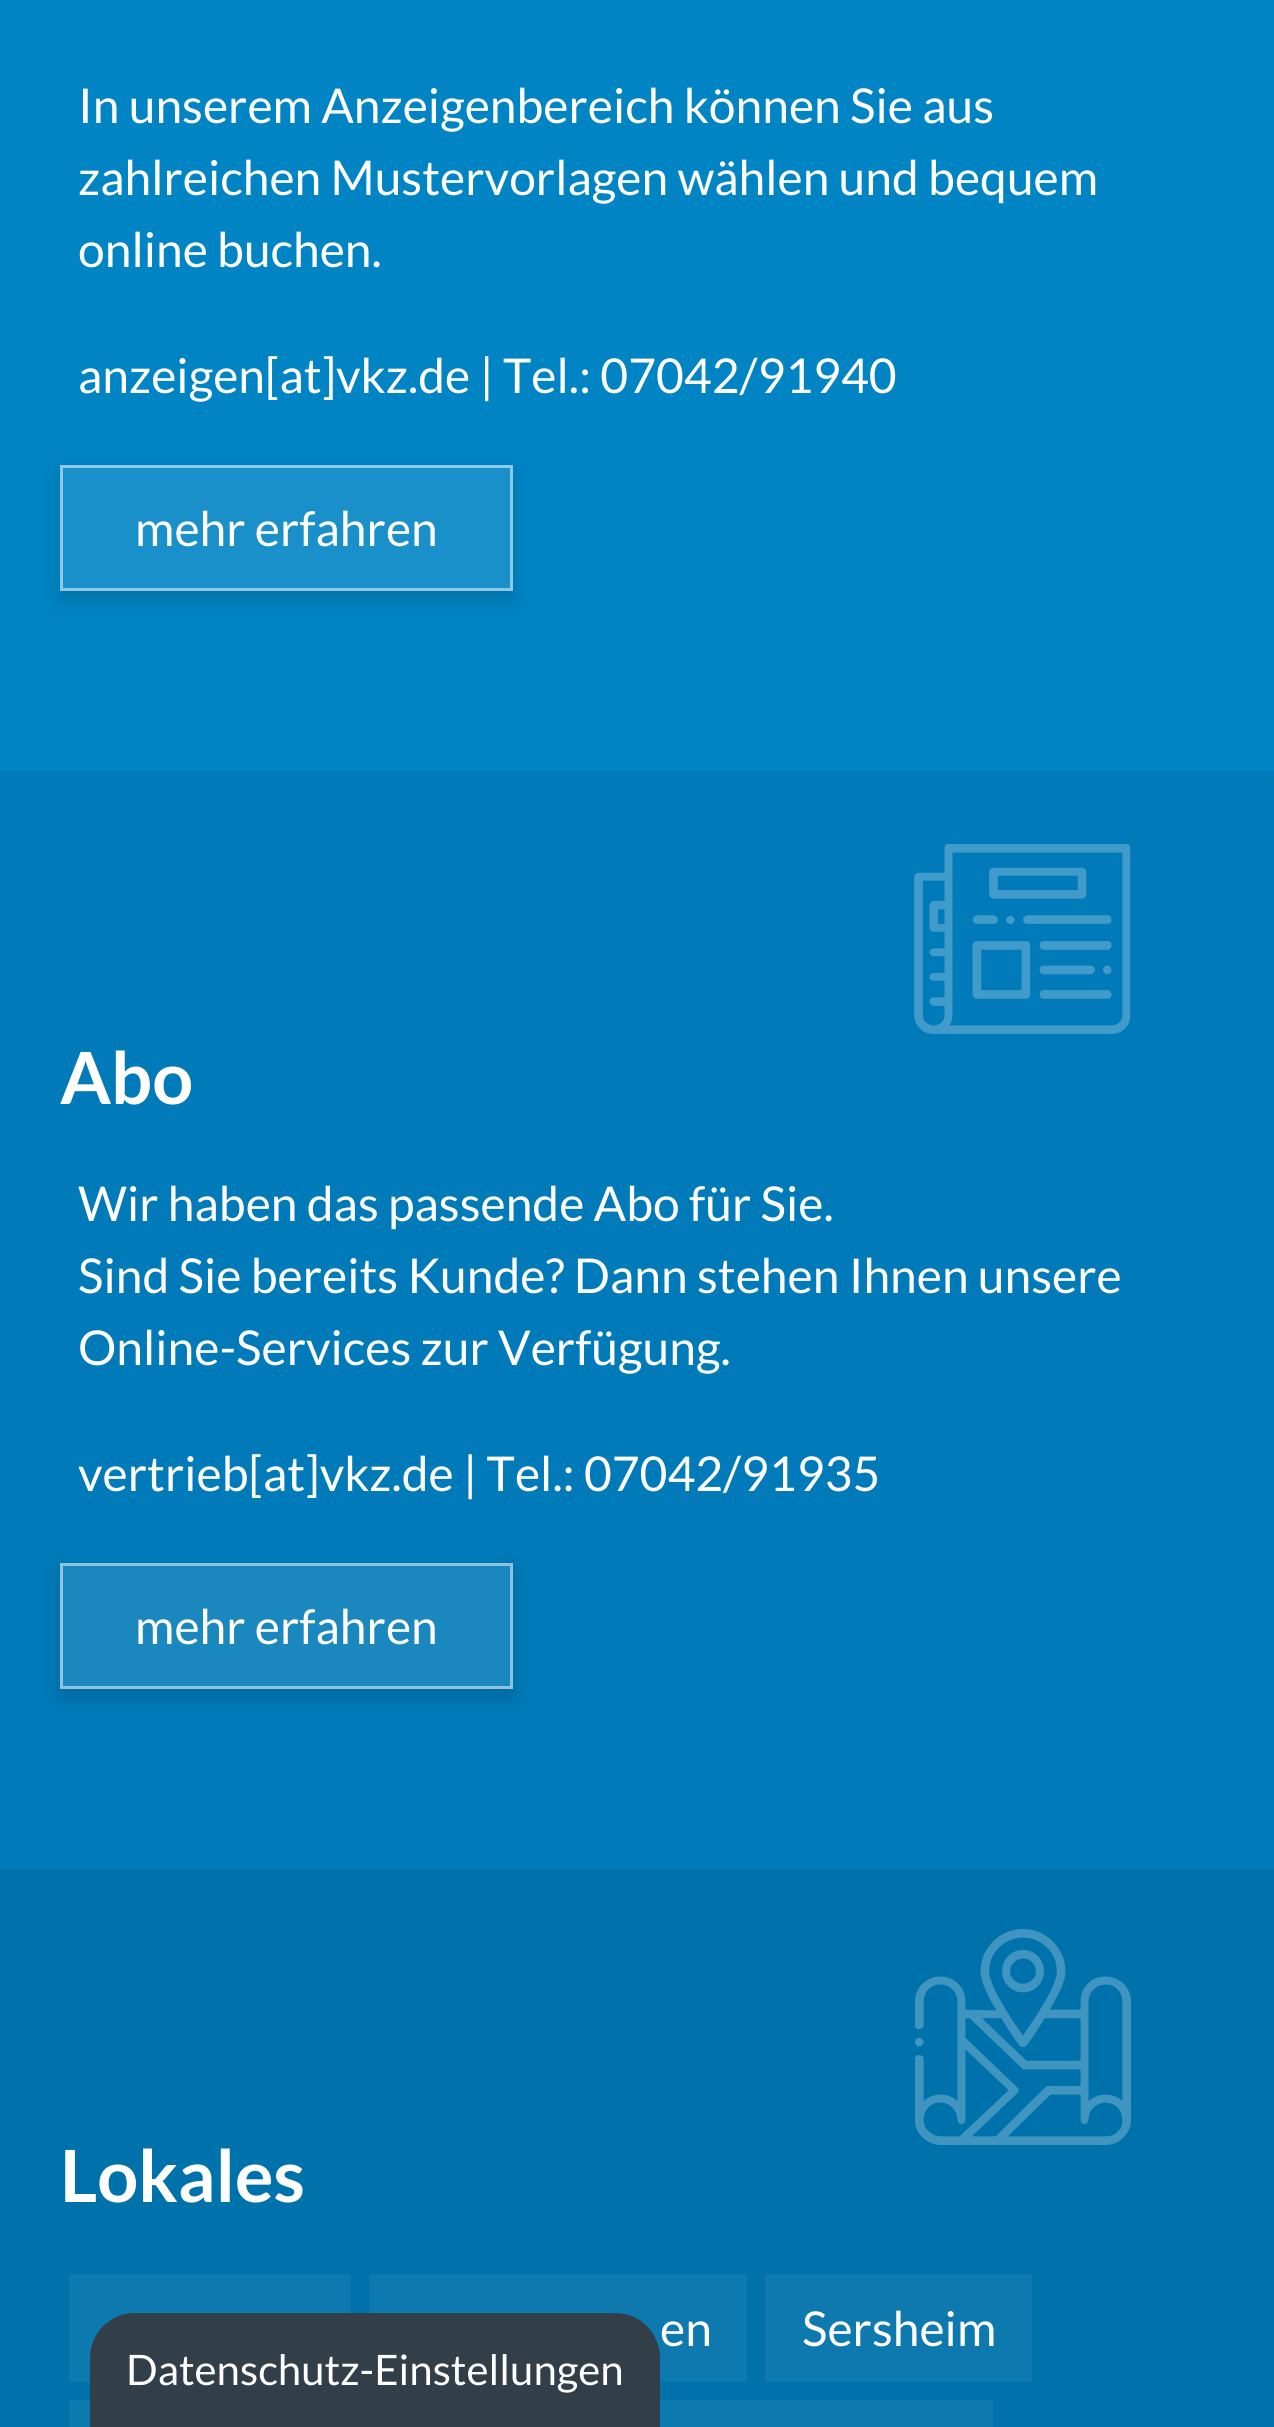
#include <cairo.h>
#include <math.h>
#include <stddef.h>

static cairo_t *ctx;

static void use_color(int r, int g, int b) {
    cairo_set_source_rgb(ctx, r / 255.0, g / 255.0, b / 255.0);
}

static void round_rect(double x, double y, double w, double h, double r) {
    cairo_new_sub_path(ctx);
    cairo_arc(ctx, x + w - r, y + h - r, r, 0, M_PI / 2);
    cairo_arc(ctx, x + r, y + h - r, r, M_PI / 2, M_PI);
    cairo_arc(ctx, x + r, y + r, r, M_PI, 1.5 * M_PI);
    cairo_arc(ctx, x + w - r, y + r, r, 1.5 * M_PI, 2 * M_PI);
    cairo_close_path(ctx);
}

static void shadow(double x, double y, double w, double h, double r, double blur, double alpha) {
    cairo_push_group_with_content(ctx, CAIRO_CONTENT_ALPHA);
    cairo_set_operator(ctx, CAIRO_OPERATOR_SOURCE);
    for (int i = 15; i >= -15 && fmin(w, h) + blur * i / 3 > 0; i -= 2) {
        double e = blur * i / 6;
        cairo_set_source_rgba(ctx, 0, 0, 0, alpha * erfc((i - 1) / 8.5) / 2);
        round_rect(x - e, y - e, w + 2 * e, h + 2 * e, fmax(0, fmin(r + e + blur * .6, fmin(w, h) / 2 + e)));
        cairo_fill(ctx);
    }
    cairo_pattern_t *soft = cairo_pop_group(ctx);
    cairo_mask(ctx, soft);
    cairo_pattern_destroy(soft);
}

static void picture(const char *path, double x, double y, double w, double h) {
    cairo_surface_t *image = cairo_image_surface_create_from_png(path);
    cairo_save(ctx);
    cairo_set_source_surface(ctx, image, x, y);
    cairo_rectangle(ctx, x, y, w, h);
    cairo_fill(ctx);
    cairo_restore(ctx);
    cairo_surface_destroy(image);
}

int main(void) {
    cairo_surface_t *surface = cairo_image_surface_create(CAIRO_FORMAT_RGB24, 1274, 2427);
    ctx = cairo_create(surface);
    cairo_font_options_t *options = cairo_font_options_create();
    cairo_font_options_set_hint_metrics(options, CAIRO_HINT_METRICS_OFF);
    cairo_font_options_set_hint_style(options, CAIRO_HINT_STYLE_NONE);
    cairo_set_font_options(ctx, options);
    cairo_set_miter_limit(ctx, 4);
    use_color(0, 132, 196);
    cairo_paint(ctx);
    cairo_select_font_face(ctx, "Lato", CAIRO_FONT_SLANT_NORMAL, CAIRO_FONT_WEIGHT_NORMAL);
    cairo_set_font_size(ctx, 48);
    use_color(255, 255, 255);
    cairo_move_to(ctx, 78, 123);
    cairo_show_text(ctx, "In unserem Anzeigenbereich können Sie aus");
    cairo_move_to(ctx, 78, 195);
    cairo_show_text(ctx, "zahlreichen Mustervorlagen wählen und bequem");
    cairo_move_to(ctx, 78, 267);
    cairo_show_text(ctx, "online buchen.");
    cairo_move_to(ctx, 78, 393);
    cairo_show_text(ctx, "anzeigen[at]vkz.de | Tel.: 07042/91940");
    use_color(0, 0, 0);
    shadow(60, 474, 453, 126, 0, 9, 0.15);
    use_color(26, 144, 202);
    cairo_rectangle(ctx, 61.5, 466.5, 450, 123);
    cairo_fill_preserve(ctx);
    use_color(141, 200, 229);
    cairo_set_line_width(ctx, 3);
    cairo_stroke(ctx);
    use_color(255, 255, 255);
    cairo_move_to(ctx, 135, 546);
    cairo_show_text(ctx, "mehr erfahren");
    use_color(0, 122, 184);
    cairo_rectangle(ctx, 0, 771, 1274, 1098);
    cairo_fill(ctx);
    picture("img1.png", 914, 844, 217, 190);
    cairo_select_font_face(ctx, "Lato", CAIRO_FONT_SLANT_NORMAL, CAIRO_FONT_WEIGHT_BOLD);
    cairo_set_font_size(ctx, 72);
    use_color(255, 255, 255);
    cairo_move_to(ctx, 60, 1104);
    cairo_show_text(ctx, "Abo");
    cairo_select_font_face(ctx, "Lato", CAIRO_FONT_SLANT_NORMAL, CAIRO_FONT_WEIGHT_NORMAL);
    cairo_set_font_size(ctx, 48);
    cairo_move_to(ctx, 78, 1221);
    cairo_show_text(ctx, "Wir haben das passende Abo für Sie.");
    cairo_move_to(ctx, 78, 1293);
    cairo_show_text(ctx, "Sind Sie bereits Kunde? Dann stehen Ihnen unsere");
    cairo_move_to(ctx, 78, 1365);
    cairo_show_text(ctx, "Online-Services zur Verfügung.");
    cairo_move_to(ctx, 78, 1491);
    cairo_show_text(ctx, "vertrieb[at]vkz.de | Tel.: 07042/91935");
    use_color(0, 0, 0);
    shadow(60, 1572, 453, 126, 0, 9, 0.15);
    use_color(26, 135, 191);
    cairo_rectangle(ctx, 61.5, 1564.5, 450, 123);
    cairo_fill_preserve(ctx);
    use_color(141, 195, 223);
    cairo_stroke(ctx);
    use_color(255, 255, 255);
    cairo_move_to(ctx, 135, 1644);
    cairo_show_text(ctx, "mehr erfahren");
    use_color(0, 114, 171);
    cairo_rectangle(ctx, 0, 1869, 1274, 558);
    cairo_fill(ctx);
    picture("img2.png", 915, 1929, 216, 216);
    cairo_select_font_face(ctx, "Lato", CAIRO_FONT_SLANT_NORMAL, CAIRO_FONT_WEIGHT_BOLD);
    cairo_set_font_size(ctx, 72);
    use_color(255, 255, 255);
    cairo_move_to(ctx, 60, 2202);
    cairo_show_text(ctx, "Lokales");
    use_color(13, 121, 175);
    cairo_rectangle(ctx, 69, 2274, 282, 108);
    cairo_fill(ctx);
    cairo_rectangle(ctx, 369, 2274, 378, 108);
    cairo_fill(ctx);
    cairo_select_font_face(ctx, "Lato", CAIRO_FONT_SLANT_NORMAL, CAIRO_FONT_WEIGHT_NORMAL);
    cairo_set_font_size(ctx, 48);
    use_color(255, 255, 255);
    cairo_move_to(ctx, 660, 2346);
    cairo_show_text(ctx, "en");
    use_color(13, 121, 175);
    cairo_rectangle(ctx, 765, 2274, 267, 108);
    cairo_fill(ctx);
    use_color(255, 255, 255);
    cairo_move_to(ctx, 802, 2346);
    cairo_show_text(ctx, "Sersheim");
    use_color(13, 121, 175);
    cairo_rectangle(ctx, 69, 2400, 21, 27);
    cairo_fill(ctx);
    cairo_rectangle(ctx, 660, 2400, 333, 27);
    cairo_fill(ctx);
    use_color(50, 62, 72);
    cairo_new_path(ctx);
    cairo_move_to(ctx, 135, 2313);
    cairo_line_to(ctx, 615, 2313);
    cairo_curve_to(ctx, 640, 2313, 660, 2333, 660, 2358);
    cairo_line_to(ctx, 660, 2427);
    cairo_line_to(ctx, 90, 2427);
    cairo_line_to(ctx, 90, 2358);
    cairo_curve_to(ctx, 90, 2333, 110, 2313, 135, 2313);
    cairo_close_path(ctx);
    cairo_fill(ctx);
    cairo_set_font_size(ctx, 42);
    use_color(255, 255, 255);
    cairo_move_to(ctx, 126, 2385);
    cairo_show_text(ctx, "Datenschutz-Einstellungen");
    cairo_surface_write_to_png(surface, "result.png");
    cairo_font_options_destroy(options);
    cairo_destroy(ctx);
    cairo_surface_destroy(surface);
    return 0;
}
